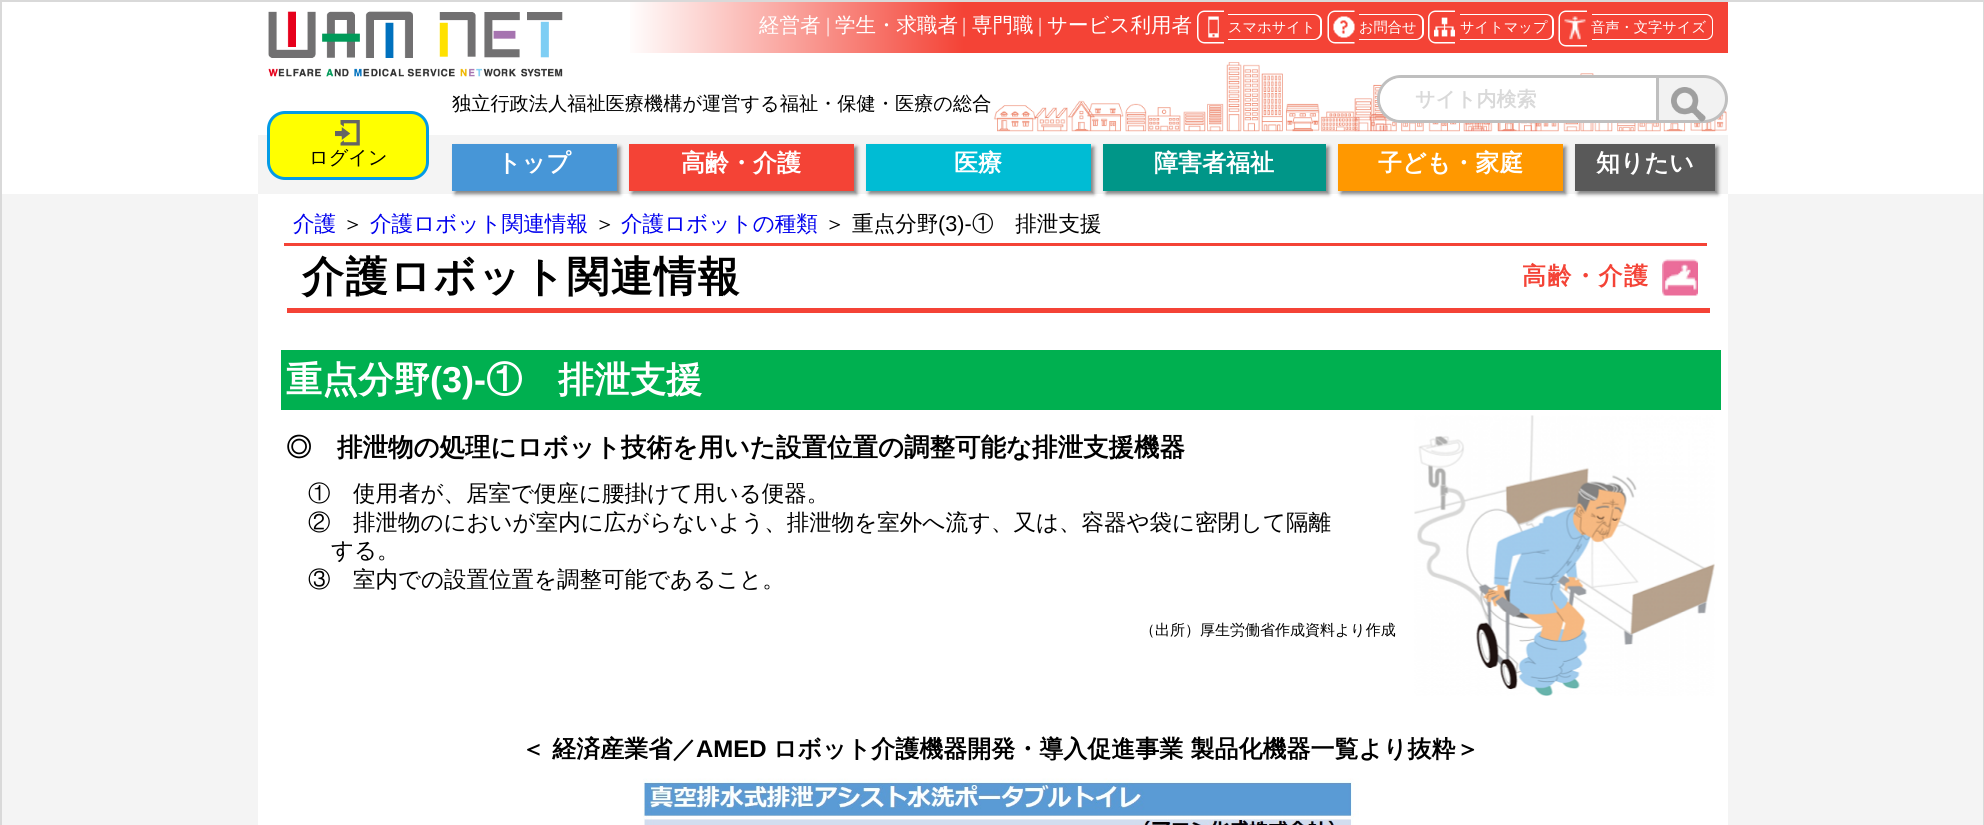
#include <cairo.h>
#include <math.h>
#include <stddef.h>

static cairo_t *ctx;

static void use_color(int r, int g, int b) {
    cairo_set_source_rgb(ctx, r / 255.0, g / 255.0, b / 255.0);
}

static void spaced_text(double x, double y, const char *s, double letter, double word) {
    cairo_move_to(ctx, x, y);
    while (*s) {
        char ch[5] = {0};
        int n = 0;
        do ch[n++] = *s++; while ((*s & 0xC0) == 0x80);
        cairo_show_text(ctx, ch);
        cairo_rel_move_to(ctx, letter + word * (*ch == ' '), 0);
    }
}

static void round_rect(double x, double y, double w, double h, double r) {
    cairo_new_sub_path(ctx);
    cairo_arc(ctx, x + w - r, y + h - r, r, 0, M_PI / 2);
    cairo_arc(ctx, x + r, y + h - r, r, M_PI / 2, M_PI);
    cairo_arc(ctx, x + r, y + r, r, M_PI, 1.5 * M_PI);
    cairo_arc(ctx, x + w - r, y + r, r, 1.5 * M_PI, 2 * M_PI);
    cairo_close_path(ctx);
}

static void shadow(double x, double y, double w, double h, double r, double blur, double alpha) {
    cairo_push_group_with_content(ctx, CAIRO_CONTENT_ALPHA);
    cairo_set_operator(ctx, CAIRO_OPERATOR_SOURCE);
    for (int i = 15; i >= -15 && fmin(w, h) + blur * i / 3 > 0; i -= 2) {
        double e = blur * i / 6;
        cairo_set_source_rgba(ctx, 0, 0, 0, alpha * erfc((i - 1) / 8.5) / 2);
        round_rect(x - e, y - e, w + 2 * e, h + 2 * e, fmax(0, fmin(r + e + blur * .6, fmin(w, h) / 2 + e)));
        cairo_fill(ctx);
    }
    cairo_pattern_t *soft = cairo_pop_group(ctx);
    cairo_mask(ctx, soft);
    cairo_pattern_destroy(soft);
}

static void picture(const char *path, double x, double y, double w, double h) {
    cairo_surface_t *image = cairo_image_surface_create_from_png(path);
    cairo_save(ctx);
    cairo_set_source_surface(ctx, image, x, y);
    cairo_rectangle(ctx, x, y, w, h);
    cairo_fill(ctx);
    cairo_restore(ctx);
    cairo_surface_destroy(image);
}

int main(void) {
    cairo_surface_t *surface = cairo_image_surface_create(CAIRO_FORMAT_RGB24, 1984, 825);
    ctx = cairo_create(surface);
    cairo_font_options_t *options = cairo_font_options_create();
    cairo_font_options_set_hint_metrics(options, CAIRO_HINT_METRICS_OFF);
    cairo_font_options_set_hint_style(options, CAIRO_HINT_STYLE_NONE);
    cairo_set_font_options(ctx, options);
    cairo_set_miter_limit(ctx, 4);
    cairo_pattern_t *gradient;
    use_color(244, 244, 244);
    cairo_paint(ctx);
    cairo_rectangle(ctx, 1, 1, 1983, 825);
    use_color(217, 217, 217);
    cairo_stroke(ctx);
    use_color(255, 255, 255);
    cairo_rectangle(ctx, 2, 2, 1981, 192);
    cairo_fill(ctx);
    picture("img1.png", 268, 11, 295, 66);
    gradient = cairo_pattern_create_linear(258, 27, 1728, 27);
    cairo_pattern_add_color_stop_rgba(gradient, 0, 1, 1, 1, 1);
    cairo_pattern_add_color_stop_rgba(gradient, 0.25, 1, 1, 1, 1);
    cairo_pattern_add_color_stop_rgba(gradient, 0.48, 0.957, 0.263, 0.212, 1);
    cairo_set_source(ctx, gradient);
    cairo_pattern_destroy(gradient);
    cairo_rectangle(ctx, 630, 2, 1098, 51);
    cairo_fill(ctx);
    cairo_select_font_face(ctx, "WenQuanYi Zen Hei Medium", CAIRO_FONT_SLANT_NORMAL, CAIRO_FONT_WEIGHT_NORMAL);
    cairo_set_font_size(ctx, 20.5);
    use_color(255, 255, 255);
    cairo_move_to(ctx, 759, 32);
    cairo_show_text(ctx, "経営者");
    cairo_select_font_face(ctx, "Liberation Serif", CAIRO_FONT_SLANT_NORMAL, CAIRO_FONT_WEIGHT_NORMAL);
    cairo_move_to(ctx, 826, 32);
    cairo_show_text(ctx, "|");
    cairo_select_font_face(ctx, "WenQuanYi Zen Hei Medium", CAIRO_FONT_SLANT_NORMAL, CAIRO_FONT_WEIGHT_NORMAL);
    cairo_move_to(ctx, 835, 32);
    cairo_show_text(ctx, "学生・求職者");
    cairo_select_font_face(ctx, "Liberation Serif", CAIRO_FONT_SLANT_NORMAL, CAIRO_FONT_WEIGHT_NORMAL);
    cairo_move_to(ctx, 962, 32);
    cairo_show_text(ctx, "|");
    cairo_select_font_face(ctx, "WenQuanYi Zen Hei Medium", CAIRO_FONT_SLANT_NORMAL, CAIRO_FONT_WEIGHT_NORMAL);
    cairo_move_to(ctx, 972, 32);
    cairo_show_text(ctx, "専門職");
    cairo_select_font_face(ctx, "Liberation Serif", CAIRO_FONT_SLANT_NORMAL, CAIRO_FONT_WEIGHT_NORMAL);
    cairo_move_to(ctx, 1038, 32);
    cairo_show_text(ctx, "|");
    cairo_select_font_face(ctx, "WenQuanYi Zen Hei Medium", CAIRO_FONT_SLANT_NORMAL, CAIRO_FONT_WEIGHT_NORMAL);
    cairo_move_to(ctx, 1047, 32);
    cairo_show_text(ctx, "サービス利用者");
    cairo_set_fill_rule(ctx, CAIRO_FILL_RULE_EVEN_ODD);
    cairo_new_path(ctx);
    cairo_move_to(ctx, 1204.5, 10.5);
    cairo_line_to(ctx, 1224, 10.5);
    cairo_line_to(ctx, 1224, 43.5);
    cairo_line_to(ctx, 1204.5, 43.5);
    cairo_curve_to(ctx, 1200.5, 43.5, 1197, 40, 1197, 36);
    cairo_line_to(ctx, 1197, 18);
    cairo_curve_to(ctx, 1197, 14, 1200.5, 10.5, 1204.5, 10.5);
    cairo_close_path(ctx);
    cairo_move_to(ctx, 1204.5, 12);
    cairo_line_to(ctx, 1224, 12);
    cairo_line_to(ctx, 1224, 42);
    cairo_line_to(ctx, 1204.5, 42);
    cairo_curve_to(ctx, 1201, 42, 1198.5, 39.5, 1198.5, 36);
    cairo_line_to(ctx, 1198.5, 18);
    cairo_curve_to(ctx, 1198.5, 14.5, 1201, 12, 1204.5, 12);
    cairo_close_path(ctx);
    cairo_fill(ctx);
    picture("img2.png", 1208, 16, 11, 22);
    cairo_new_path(ctx);
    cairo_move_to(ctx, 1228, 14);
    cairo_line_to(ctx, 1314, 14);
    cairo_curve_to(ctx, 1318, 14, 1322, 17, 1322, 21);
    cairo_line_to(ctx, 1322, 33);
    cairo_curve_to(ctx, 1322, 37, 1318, 40, 1314, 40);
    cairo_line_to(ctx, 1228, 40);
    cairo_close_path(ctx);
    cairo_move_to(ctx, 1228, 15);
    cairo_line_to(ctx, 1314, 15);
    cairo_curve_to(ctx, 1317, 15, 1320, 18, 1320, 21);
    cairo_line_to(ctx, 1320, 33);
    cairo_curve_to(ctx, 1320, 36, 1317, 39, 1314, 39);
    cairo_line_to(ctx, 1228, 39);
    cairo_close_path(ctx);
    cairo_fill(ctx);
    cairo_set_font_size(ctx, 14.25);
    cairo_move_to(ctx, 1228, 32);
    cairo_show_text(ctx, "スマホサイト");
    cairo_new_path(ctx);
    cairo_move_to(ctx, 1335, 10.5);
    cairo_line_to(ctx, 1354.5, 10.5);
    cairo_line_to(ctx, 1354.5, 43.5);
    cairo_line_to(ctx, 1335, 43.5);
    cairo_curve_to(ctx, 1331, 43.5, 1327.5, 40, 1327.5, 36);
    cairo_line_to(ctx, 1327.5, 18);
    cairo_curve_to(ctx, 1327.5, 14, 1331, 10.5, 1335, 10.5);
    cairo_close_path(ctx);
    cairo_move_to(ctx, 1335, 12);
    cairo_line_to(ctx, 1354.5, 12);
    cairo_line_to(ctx, 1354.5, 42);
    cairo_line_to(ctx, 1335, 42);
    cairo_curve_to(ctx, 1331.5, 42, 1329, 39.5, 1329, 36);
    cairo_line_to(ctx, 1329, 18);
    cairo_curve_to(ctx, 1329, 14.5, 1331.5, 12, 1335, 12);
    cairo_close_path(ctx);
    cairo_fill(ctx);
    picture("img3.png", 1333, 16, 22, 22);
    cairo_new_path(ctx);
    cairo_move_to(ctx, 1359, 14);
    cairo_line_to(ctx, 1416, 14);
    cairo_curve_to(ctx, 1420, 14, 1424, 17, 1424, 21);
    cairo_line_to(ctx, 1424, 33);
    cairo_curve_to(ctx, 1424, 37, 1420, 40, 1416, 40);
    cairo_line_to(ctx, 1359, 40);
    cairo_close_path(ctx);
    cairo_move_to(ctx, 1359, 15);
    cairo_line_to(ctx, 1416, 15);
    cairo_curve_to(ctx, 1419, 15, 1422, 18, 1422, 21);
    cairo_line_to(ctx, 1422, 33);
    cairo_curve_to(ctx, 1422, 36, 1419, 39, 1416, 39);
    cairo_line_to(ctx, 1359, 39);
    cairo_close_path(ctx);
    cairo_fill(ctx);
    cairo_move_to(ctx, 1359, 32);
    cairo_show_text(ctx, "お問合せ");
    cairo_new_path(ctx);
    cairo_move_to(ctx, 1435.5, 10.5);
    cairo_line_to(ctx, 1455, 10.5);
    cairo_line_to(ctx, 1455, 43.5);
    cairo_line_to(ctx, 1435.5, 43.5);
    cairo_curve_to(ctx, 1431.5, 43.5, 1428, 40, 1428, 36);
    cairo_line_to(ctx, 1428, 18);
    cairo_curve_to(ctx, 1428, 14, 1431.5, 10.5, 1435.5, 10.5);
    cairo_close_path(ctx);
    cairo_move_to(ctx, 1435.5, 12);
    cairo_line_to(ctx, 1455, 12);
    cairo_line_to(ctx, 1455, 42);
    cairo_line_to(ctx, 1435.5, 42);
    cairo_curve_to(ctx, 1432, 42, 1429.5, 39.5, 1429.5, 36);
    cairo_line_to(ctx, 1429.5, 18);
    cairo_curve_to(ctx, 1429.5, 14.5, 1432, 12, 1435.5, 12);
    cairo_close_path(ctx);
    cairo_fill(ctx);
    picture("img4.png", 1434, 17, 21, 20);
    cairo_new_path(ctx);
    cairo_move_to(ctx, 1460, 14);
    cairo_line_to(ctx, 1546, 14);
    cairo_curve_to(ctx, 1551, 14, 1554, 17, 1554, 21);
    cairo_line_to(ctx, 1554, 33);
    cairo_curve_to(ctx, 1554, 37, 1551, 40, 1546, 40);
    cairo_line_to(ctx, 1460, 40);
    cairo_close_path(ctx);
    cairo_move_to(ctx, 1460, 15);
    cairo_line_to(ctx, 1546, 15);
    cairo_curve_to(ctx, 1550, 15, 1552, 18, 1552, 21);
    cairo_line_to(ctx, 1552, 33);
    cairo_curve_to(ctx, 1552, 36, 1550, 39, 1546, 39);
    cairo_line_to(ctx, 1460, 39);
    cairo_close_path(ctx);
    cairo_fill(ctx);
    cairo_move_to(ctx, 1460, 32);
    cairo_show_text(ctx, "サイトマップ");
    cairo_new_path(ctx);
    cairo_move_to(ctx, 1566, 10.5);
    cairo_line_to(ctx, 1587, 10.5);
    cairo_line_to(ctx, 1587, 46.5);
    cairo_line_to(ctx, 1566, 46.5);
    cairo_curve_to(ctx, 1562, 46.5, 1558.5, 43, 1558.5, 39);
    cairo_line_to(ctx, 1558.5, 18);
    cairo_curve_to(ctx, 1558.5, 14, 1562, 10.5, 1566, 10.5);
    cairo_close_path(ctx);
    cairo_move_to(ctx, 1566, 12);
    cairo_line_to(ctx, 1587, 12);
    cairo_line_to(ctx, 1587, 45);
    cairo_line_to(ctx, 1566, 45);
    cairo_curve_to(ctx, 1562.5, 45, 1560, 42.5, 1560, 39);
    cairo_line_to(ctx, 1560, 18);
    cairo_curve_to(ctx, 1560, 14.5, 1562.5, 12, 1566, 12);
    cairo_close_path(ctx);
    cairo_fill(ctx);
    picture("img5.png", 1564, 16, 22, 24);
    cairo_new_path(ctx);
    cairo_move_to(ctx, 1592, 14);
    cairo_line_to(ctx, 1706, 14);
    cairo_curve_to(ctx, 1710, 14, 1713, 17, 1713, 21);
    cairo_line_to(ctx, 1713, 33);
    cairo_curve_to(ctx, 1713, 37, 1710, 40, 1706, 40);
    cairo_line_to(ctx, 1592, 40);
    cairo_close_path(ctx);
    cairo_move_to(ctx, 1592, 15);
    cairo_line_to(ctx, 1706, 15);
    cairo_curve_to(ctx, 1709, 15, 1712, 18, 1712, 21);
    cairo_line_to(ctx, 1712, 33);
    cairo_curve_to(ctx, 1712, 36, 1709, 39, 1706, 39);
    cairo_line_to(ctx, 1592, 39);
    cairo_close_path(ctx);
    cairo_fill(ctx);
    cairo_move_to(ctx, 1591, 32);
    cairo_show_text(ctx, "音声・文字サイズ");
    cairo_set_font_size(ctx, 19.2);
    use_color(0, 0, 0);
    cairo_move_to(ctx, 452, 110);
    cairo_show_text(ctx, "独立行政法人福祉医療機構が運営する福祉・保健・医療の総合");
    picture("img8.png", 993, 62, 734, 70);
    use_color(242, 242, 242);
    round_rect(1378.5, 76.5, 348, 45, 22.5);
    cairo_fill_preserve(ctx);
    use_color(191, 191, 191);
    cairo_set_line_width(ctx, 3);
    cairo_stroke(ctx);
    use_color(255, 255, 255);
    cairo_new_path(ctx);
    cairo_move_to(ctx, 1401, 78);
    cairo_line_to(ctx, 1659, 78);
    cairo_line_to(ctx, 1659, 120);
    cairo_line_to(ctx, 1401, 120);
    cairo_curve_to(ctx, 1389.5, 120, 1380, 110.5, 1380, 99);
    cairo_curve_to(ctx, 1380, 87.5, 1389.5, 78, 1401, 78);
    cairo_close_path(ctx);
    cairo_fill(ctx);
    use_color(191, 191, 191);
    cairo_rectangle(ctx, 1656, 78, 3, 42);
    cairo_fill(ctx);
    cairo_select_font_face(ctx, "WenQuanYi Zen Hei", CAIRO_FONT_SLANT_NORMAL, CAIRO_FONT_WEIGHT_BOLD);
    cairo_set_font_size(ctx, 20);
    use_color(217, 217, 217);
    cairo_move_to(ctx, 1415, 106);
    cairo_show_text(ctx, "サイト内検索");
    picture("img6.png", 1671, 87, 35, 35);
    use_color(244, 244, 244);
    cairo_rectangle(ctx, 258, 135, 1470, 59);
    cairo_fill(ctx);
    use_color(255, 255, 0);
    round_rect(268.5, 112.5, 159, 66, 16.5);
    cairo_fill_preserve(ctx);
    use_color(3, 155, 229);
    cairo_stroke(ctx);
    picture("img7.png", 335, 120, 25, 26);
    cairo_select_font_face(ctx, "WenQuanYi Zen Hei Medium", CAIRO_FONT_SLANT_NORMAL, CAIRO_FONT_WEIGHT_NORMAL);
    cairo_set_font_size(ctx, 19.2);
    use_color(0, 0, 0);
    cairo_move_to(ctx, 309, 164);
    cairo_show_text(ctx, "ログイン");
    use_color(255, 255, 255);
    cairo_rectangle(ctx, 258, 194, 1470, 631);
    cairo_fill(ctx);
    use_color(128, 128, 128);
    shadow(455, 147, 165, 47, 0, 2, 1);
    use_color(71, 150, 215);
    cairo_rectangle(ctx, 452, 144, 165, 47);
    cairo_fill(ctx);
    cairo_select_font_face(ctx, "WenQuanYi Zen Hei", CAIRO_FONT_SLANT_NORMAL, CAIRO_FONT_WEIGHT_BOLD);
    cairo_set_font_size(ctx, 24);
    use_color(255, 255, 255);
    cairo_move_to(ctx, 497, 171);
    cairo_show_text(ctx, "トップ");
    use_color(128, 128, 128);
    shadow(632, 147, 225, 47, 0, 2, 1);
    use_color(244, 67, 54);
    cairo_rectangle(ctx, 629, 144, 225, 47);
    cairo_fill(ctx);
    use_color(255, 255, 255);
    cairo_move_to(ctx, 681, 171);
    cairo_show_text(ctx, "高齢・介護");
    use_color(128, 128, 128);
    shadow(869, 147, 225, 47, 0, 2, 1);
    use_color(0, 188, 212);
    cairo_rectangle(ctx, 866, 144, 225, 47);
    cairo_fill(ctx);
    use_color(255, 255, 255);
    cairo_move_to(ctx, 954, 171);
    cairo_show_text(ctx, "医療");
    use_color(128, 128, 128);
    shadow(1106, 147, 223, 47, 0, 2, 1);
    use_color(0, 150, 136);
    cairo_rectangle(ctx, 1103, 144, 223, 47);
    cairo_fill(ctx);
    use_color(255, 255, 255);
    cairo_move_to(ctx, 1154, 171);
    cairo_show_text(ctx, "障害者福祉");
    use_color(128, 128, 128);
    shadow(1341, 147, 225, 47, 0, 2, 1);
    use_color(255, 152, 0);
    cairo_rectangle(ctx, 1338, 144, 225, 47);
    cairo_fill(ctx);
    use_color(255, 255, 255);
    cairo_move_to(ctx, 1378, 171);
    cairo_show_text(ctx, "子ども・家庭");
    use_color(128, 128, 128);
    shadow(1578, 147, 140, 47, 0, 2, 1);
    use_color(89, 89, 89);
    cairo_rectangle(ctx, 1575, 144, 140, 47);
    cairo_fill(ctx);
    use_color(255, 255, 255);
    cairo_move_to(ctx, 1596, 171);
    cairo_show_text(ctx, "知りたい");
    use_color(244, 67, 54);
    cairo_rectangle(ctx, 284, 243, 1423, 3);
    cairo_fill(ctx);
    cairo_select_font_face(ctx, "WenQuanYi Zen Hei Medium", CAIRO_FONT_SLANT_NORMAL, CAIRO_FONT_WEIGHT_NORMAL);
    cairo_set_font_size(ctx, 21.6);
    use_color(0, 0, 238);
    cairo_move_to(ctx, 293, 231);
    cairo_show_text(ctx, "介護");
    use_color(0, 0, 0);
    cairo_move_to(ctx, 342, 231);
    cairo_show_text(ctx, "＞");
    use_color(0, 0, 238);
    cairo_move_to(ctx, 370, 231);
    cairo_show_text(ctx, "介護ロボット関連情報");
    use_color(0, 0, 0);
    cairo_move_to(ctx, 594, 231);
    cairo_show_text(ctx, "＞");
    use_color(0, 0, 238);
    cairo_move_to(ctx, 621, 231);
    cairo_show_text(ctx, "介護ロボットの種類");
    use_color(0, 0, 0);
    cairo_move_to(ctx, 824, 231);
    cairo_show_text(ctx, "＞");
    cairo_move_to(ctx, 852, 231);
    cairo_show_text(ctx, "重点分野");
    cairo_select_font_face(ctx, "Liberation Sans", CAIRO_FONT_SLANT_NORMAL, CAIRO_FONT_WEIGHT_NORMAL);
    cairo_move_to(ctx, 938, 231);
    cairo_show_text(ctx, "(3)-");
    cairo_select_font_face(ctx, "WenQuanYi Zen Hei Medium", CAIRO_FONT_SLANT_NORMAL, CAIRO_FONT_WEIGHT_NORMAL);
    cairo_move_to(ctx, 972, 231);
    cairo_show_text(ctx, "①　排泄支援");
    use_color(244, 67, 54);
    cairo_rectangle(ctx, 287, 308, 1423, 5);
    cairo_fill(ctx);
    cairo_select_font_face(ctx, "WenQuanYi Zen Hei", CAIRO_FONT_SLANT_NORMAL, CAIRO_FONT_WEIGHT_BOLD);
    cairo_set_font_size(ctx, 42);
    use_color(0, 0, 0);
    spaced_text(302, 291, "介護ロボット関連情報", 1.5, 0);
    picture("img9.png", 1662, 259, 36, 37);
    cairo_set_font_size(ctx, 24);
    use_color(244, 67, 54);
    spaced_text(1522, 284, "高齢・介護", 1.5, 0);
    use_color(0, 176, 80);
    cairo_rectangle(ctx, 281, 350, 1440, 60);
    cairo_fill(ctx);
    cairo_set_font_size(ctx, 36);
    use_color(255, 255, 255);
    cairo_move_to(ctx, 286, 392);
    cairo_show_text(ctx, "重点分野");
    cairo_select_font_face(ctx, "Liberation Sans", CAIRO_FONT_SLANT_NORMAL, CAIRO_FONT_WEIGHT_BOLD);
    cairo_move_to(ctx, 430, 392);
    cairo_show_text(ctx, "(3)-");
    cairo_select_font_face(ctx, "WenQuanYi Zen Hei", CAIRO_FONT_SLANT_NORMAL, CAIRO_FONT_WEIGHT_BOLD);
    cairo_move_to(ctx, 486, 392);
    cairo_show_text(ctx, "①　排泄支援");
    cairo_set_font_size(ctx, 25.5);
    use_color(0, 0, 0);
    cairo_move_to(ctx, 286, 456);
    cairo_show_text(ctx, "◎　排泄物の処理にロボット技術を用いた設置位置の調整可能な排泄支援機器");
    cairo_select_font_face(ctx, "WenQuanYi Zen Hei Medium", CAIRO_FONT_SLANT_NORMAL, CAIRO_FONT_WEIGHT_NORMAL);
    cairo_set_font_size(ctx, 22.5);
    cairo_move_to(ctx, 308, 501);
    cairo_show_text(ctx, "①　使用者が、居室で便座に腰掛けて用いる便器。");
    cairo_move_to(ctx, 308, 530);
    cairo_show_text(ctx, "②　排泄物のにおいが室内に広がらないよう、排泄物を室外へ流す、又は、容器や袋に密閉して隔離");
    cairo_move_to(ctx, 331, 558);
    cairo_show_text(ctx, "する。");
    cairo_move_to(ctx, 308, 587);
    cairo_show_text(ctx, "③　室内での設置位置を調整可能であること。");
    cairo_set_font_size(ctx, 15);
    cairo_move_to(ctx, 1140, 635);
    cairo_show_text(ctx, "（出所）厚生労働省作成資料より作成");
    picture("img10.png", 1414, 415, 301, 281);
    cairo_select_font_face(ctx, "WenQuanYi Zen Hei", CAIRO_FONT_SLANT_NORMAL, CAIRO_FONT_WEIGHT_BOLD);
    cairo_set_font_size(ctx, 24);
    cairo_move_to(ctx, 521, 757);
    cairo_show_text(ctx, "＜ 経済産業省／");
    cairo_select_font_face(ctx, "Liberation Sans", CAIRO_FONT_SLANT_NORMAL, CAIRO_FONT_WEIGHT_BOLD);
    cairo_move_to(ctx, 696, 757);
    cairo_show_text(ctx, "AMED");
    cairo_select_font_face(ctx, "WenQuanYi Zen Hei", CAIRO_FONT_SLANT_NORMAL, CAIRO_FONT_WEIGHT_BOLD);
    cairo_move_to(ctx, 773, 757);
    cairo_show_text(ctx, "ロボット介護機器開発・導入促進事業 製品化機器一覧より抜粋＞");
    picture("img11.png", 643, 778, 716, 47);
    cairo_surface_write_to_png(surface, "result.png");
    cairo_font_options_destroy(options);
    cairo_destroy(ctx);
    cairo_surface_destroy(surface);
    return 0;
}
